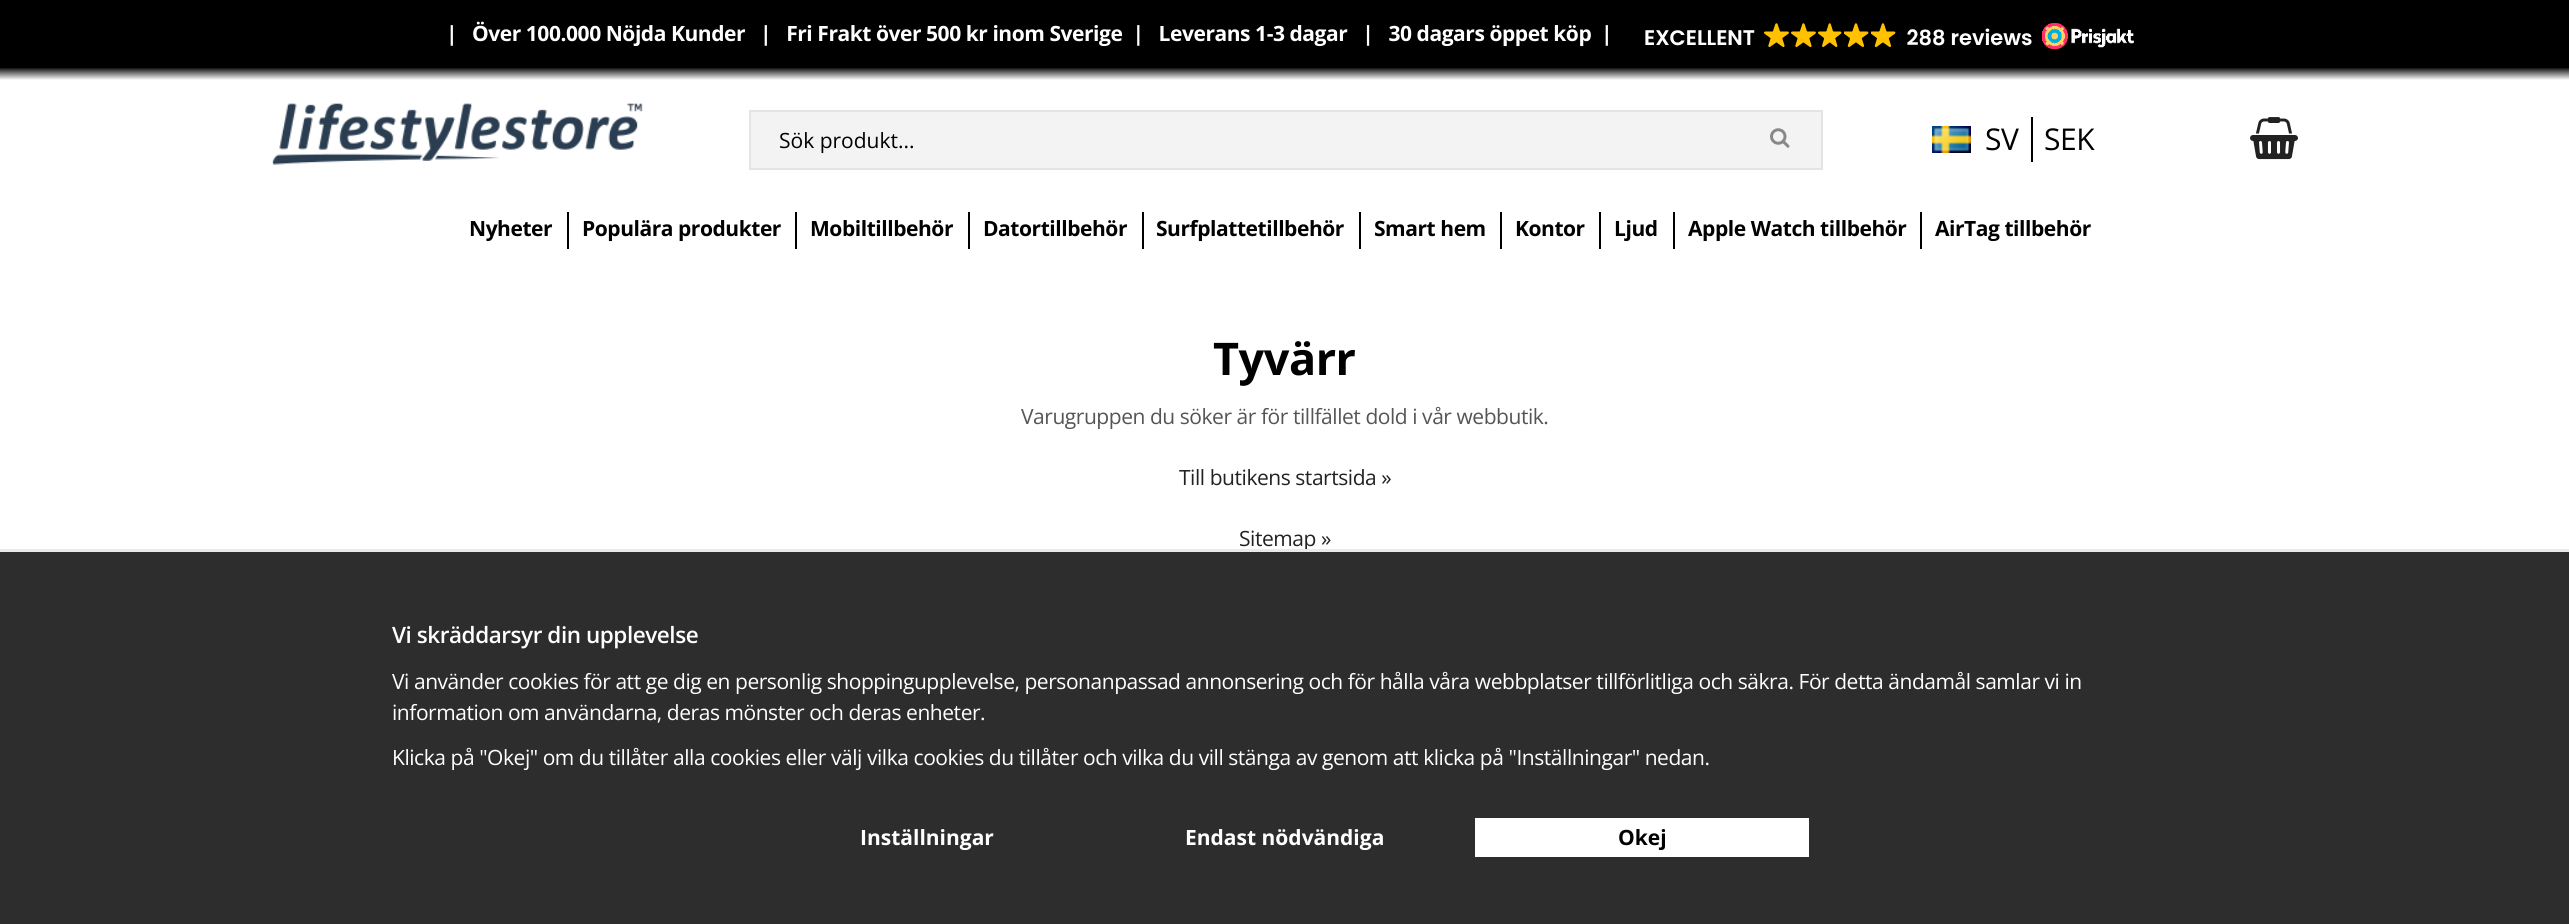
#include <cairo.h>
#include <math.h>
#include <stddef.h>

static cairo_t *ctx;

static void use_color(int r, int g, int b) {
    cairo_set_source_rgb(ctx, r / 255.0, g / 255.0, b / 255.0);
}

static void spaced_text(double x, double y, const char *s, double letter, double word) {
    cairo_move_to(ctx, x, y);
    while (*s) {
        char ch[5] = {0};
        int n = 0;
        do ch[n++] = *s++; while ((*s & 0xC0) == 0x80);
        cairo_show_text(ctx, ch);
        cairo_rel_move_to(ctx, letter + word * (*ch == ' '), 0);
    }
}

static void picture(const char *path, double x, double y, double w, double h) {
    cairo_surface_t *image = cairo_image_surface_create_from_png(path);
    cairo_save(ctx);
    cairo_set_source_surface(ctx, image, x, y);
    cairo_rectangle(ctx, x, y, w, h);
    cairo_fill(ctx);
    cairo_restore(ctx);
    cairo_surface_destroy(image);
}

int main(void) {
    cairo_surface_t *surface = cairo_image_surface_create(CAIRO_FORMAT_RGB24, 2569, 924);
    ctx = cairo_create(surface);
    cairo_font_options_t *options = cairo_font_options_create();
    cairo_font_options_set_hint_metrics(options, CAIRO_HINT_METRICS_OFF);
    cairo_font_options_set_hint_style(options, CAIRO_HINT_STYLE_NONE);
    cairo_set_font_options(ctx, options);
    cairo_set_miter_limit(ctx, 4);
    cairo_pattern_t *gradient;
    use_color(255, 255, 255);
    cairo_paint(ctx);
    use_color(0, 0, 0);
    cairo_rectangle(ctx, 0, 0, 2569, 68);
    cairo_fill(ctx);
    cairo_select_font_face(ctx, "Open Sans", CAIRO_FONT_SLANT_NORMAL, CAIRO_FONT_WEIGHT_BOLD);
    cairo_set_font_size(ctx, 21);
    use_color(255, 255, 255);
    spaced_text(446, 41, "|", -0.45, 0);
    spaced_text(472, 41, "Över 100.000 Nöjda Kunder   |   Fri Frakt över 500 kr inom Sverige  |   Leverans 1-3 dagar   |   30 dagars öppet köp", -0.45, 0);
    spaced_text(1601, 41, "|", -0.45, 0);
    picture("img1.png", 1645, 23, 489, 27);
    gradient = cairo_pattern_create_linear(1285, 67, 1285, 80);
    cairo_pattern_add_color_stop_rgba(gradient, 0, 0, 0, 0, 1);
    cairo_pattern_add_color_stop_rgba(gradient, 1, 1, 1, 1, 1);
    cairo_set_source(ctx, gradient);
    cairo_pattern_destroy(gradient);
    cairo_rectangle(ctx, 0, 68, 2569, 12);
    cairo_fill(ctx);
    picture("img2.png", 272, 103, 371, 62);
    use_color(243, 243, 243);
    cairo_rectangle(ctx, 750, 111, 1072, 58);
    cairo_fill_preserve(ctx);
    use_color(228, 228, 228);
    cairo_stroke(ctx);
    cairo_select_font_face(ctx, "Open Sans", CAIRO_FONT_SLANT_NORMAL, CAIRO_FONT_WEIGHT_NORMAL);
    use_color(0, 0, 0);
    cairo_move_to(ctx, 779, 148);
    cairo_show_text(ctx, "Sök produkt...");
    picture("img3.png", 1770, 128, 20, 20);
    cairo_rectangle(ctx, 2031, 117, 2, 45);
    cairo_fill(ctx);
    picture("img4.png", 1932, 126, 39, 27);
    cairo_set_font_size(ctx, 30);
    spaced_text(1985, 150, "SV", -0.45, 0);
    spaced_text(2044, 150, "SEK", -0.45, 0);
    picture("img5.png", 2250, 117, 48, 43);
    cairo_select_font_face(ctx, "Open Sans", CAIRO_FONT_SLANT_NORMAL, CAIRO_FONT_WEIGHT_BOLD);
    cairo_set_font_size(ctx, 21);
    spaced_text(469, 236, "Nyheter", -0.45, 0);
    cairo_rectangle(ctx, 567, 212, 2, 37);
    cairo_fill(ctx);
    spaced_text(582, 236, "Populära produkter", -0.45, 0);
    cairo_rectangle(ctx, 795, 212, 2, 37);
    cairo_fill(ctx);
    spaced_text(810, 236, "Mobiltillbehör", -0.45, 0);
    cairo_rectangle(ctx, 968, 212, 2, 37);
    cairo_fill(ctx);
    spaced_text(983, 236, "Datortillbehör", -0.45, 0);
    cairo_rectangle(ctx, 1142, 212, 2, 37);
    cairo_fill(ctx);
    spaced_text(1156, 236, "Surfplattetillbehör", -0.45, 0);
    cairo_rectangle(ctx, 1359, 212, 2, 37);
    cairo_fill(ctx);
    spaced_text(1374, 236, "Smart hem", -0.45, 0);
    cairo_rectangle(ctx, 1500, 212, 2, 37);
    cairo_fill(ctx);
    spaced_text(1515, 236, "Kontor", -0.45, 0);
    cairo_rectangle(ctx, 1599, 212, 2, 37);
    cairo_fill(ctx);
    spaced_text(1614, 236, "Ljud", -0.45, 0);
    cairo_rectangle(ctx, 1673, 212, 2, 37);
    cairo_fill(ctx);
    spaced_text(1688, 236, "Apple Watch tillbehör", -0.45, 0);
    cairo_rectangle(ctx, 1920, 212, 2, 37);
    cairo_fill(ctx);
    spaced_text(1935, 236, "AirTag tillbehör", -0.45, 0);
    cairo_set_font_size(ctx, 45);
    spaced_text(1213, 375, "Tyvärr", -0.45, 0);
    cairo_select_font_face(ctx, "Open Sans", CAIRO_FONT_SLANT_NORMAL, CAIRO_FONT_WEIGHT_NORMAL);
    cairo_set_font_size(ctx, 21);
    use_color(85, 85, 85);
    spaced_text(1021, 424, "Varugruppen du söker är för tillfället dold i vår webbutik.", -0.45, 0);
    use_color(34, 34, 34);
    spaced_text(1179, 485, "Till butikens startsida »", -0.45, 0);
    spaced_text(1239, 546, "Sitemap »", -0.45, 0);
    use_color(45, 45, 45);
    cairo_rectangle(ctx, 0, 552, 2569, 372);
    cairo_fill(ctx);
    use_color(233, 233, 233);
    cairo_rectangle(ctx, 0, 549, 2569, 3);
    cairo_fill(ctx);
    cairo_select_font_face(ctx, "Open Sans SemiBold", CAIRO_FONT_SLANT_NORMAL, CAIRO_FONT_WEIGHT_NORMAL);
    cairo_set_font_size(ctx, 22.5);
    use_color(255, 255, 255);
    spaced_text(392, 643, "Vi skräddarsyr din upplevelse", -0.45, 0);
    cairo_select_font_face(ctx, "Open Sans", CAIRO_FONT_SLANT_NORMAL, CAIRO_FONT_WEIGHT_NORMAL);
    cairo_set_font_size(ctx, 21);
    spaced_text(392, 689, "Vi använder cookies för att ge dig en personlig shoppingupplevelse, personanpassad annonsering och för hålla våra webbplatser tillförlitliga och säkra. För detta ändamål samlar vi in", -0.45, 0);
    spaced_text(392, 720, "information om användarna, deras mönster och deras enheter.", -0.45, 0);
    spaced_text(392, 765, "Klicka på \"Okej\" om du tillåter alla cookies eller välj vilka cookies du tillåter och vilka du vill stänga av genom att klicka på \"Inställningar\" nedan.", -0.45, 0);
    cairo_select_font_face(ctx, "Open Sans", CAIRO_FONT_SLANT_NORMAL, CAIRO_FONT_WEIGHT_BOLD);
    cairo_move_to(ctx, 860, 845);
    cairo_show_text(ctx, "Inställningar");
    cairo_move_to(ctx, 1185, 845);
    cairo_show_text(ctx, "Endast nödvändiga");
    cairo_rectangle(ctx, 1475, 818, 334, 39);
    cairo_fill(ctx);
    use_color(0, 0, 0);
    cairo_move_to(ctx, 1618, 845);
    cairo_show_text(ctx, "Okej");
    cairo_surface_write_to_png(surface, "result.png");
    cairo_font_options_destroy(options);
    cairo_destroy(ctx);
    cairo_surface_destroy(surface);
    return 0;
}
